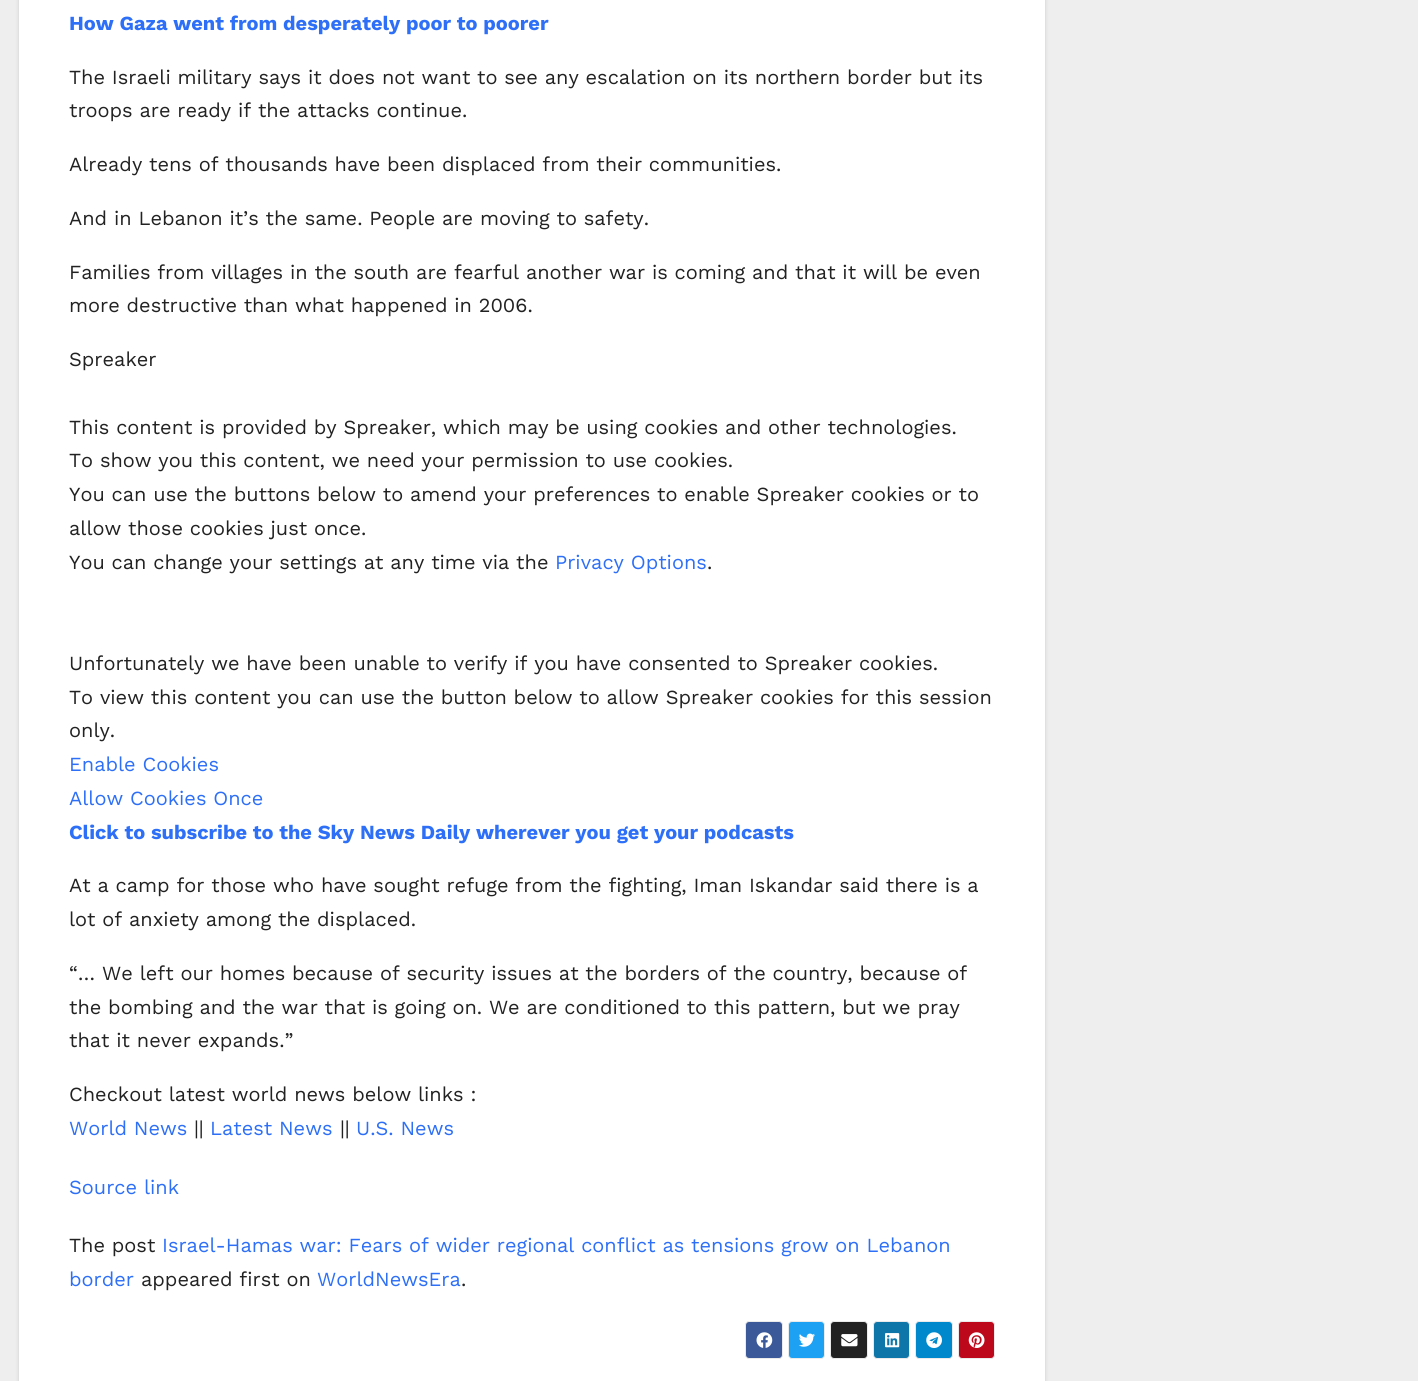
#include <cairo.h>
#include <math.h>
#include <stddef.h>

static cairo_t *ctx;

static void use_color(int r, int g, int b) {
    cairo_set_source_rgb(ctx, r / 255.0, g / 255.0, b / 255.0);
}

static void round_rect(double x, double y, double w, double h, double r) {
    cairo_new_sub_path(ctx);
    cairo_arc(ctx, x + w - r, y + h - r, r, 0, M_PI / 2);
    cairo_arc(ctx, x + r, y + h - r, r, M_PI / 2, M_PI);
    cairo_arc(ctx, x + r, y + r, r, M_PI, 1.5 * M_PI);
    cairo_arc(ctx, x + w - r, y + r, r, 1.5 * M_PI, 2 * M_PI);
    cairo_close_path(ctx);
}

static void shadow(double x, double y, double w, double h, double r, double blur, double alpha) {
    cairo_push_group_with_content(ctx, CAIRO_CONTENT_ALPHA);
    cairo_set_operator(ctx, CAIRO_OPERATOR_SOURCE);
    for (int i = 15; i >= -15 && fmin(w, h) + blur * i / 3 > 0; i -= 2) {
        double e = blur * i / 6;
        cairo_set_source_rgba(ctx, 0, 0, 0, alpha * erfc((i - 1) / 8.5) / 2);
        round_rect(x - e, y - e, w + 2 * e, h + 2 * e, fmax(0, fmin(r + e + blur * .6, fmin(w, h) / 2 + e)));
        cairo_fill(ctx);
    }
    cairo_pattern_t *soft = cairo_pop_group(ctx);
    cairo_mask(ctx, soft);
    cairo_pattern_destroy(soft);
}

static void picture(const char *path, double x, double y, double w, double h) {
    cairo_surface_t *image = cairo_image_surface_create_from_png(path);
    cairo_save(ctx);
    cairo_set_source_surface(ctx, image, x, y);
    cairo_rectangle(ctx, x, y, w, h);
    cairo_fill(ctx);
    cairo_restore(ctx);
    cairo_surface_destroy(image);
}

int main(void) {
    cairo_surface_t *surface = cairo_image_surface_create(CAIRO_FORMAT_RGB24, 1418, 1381);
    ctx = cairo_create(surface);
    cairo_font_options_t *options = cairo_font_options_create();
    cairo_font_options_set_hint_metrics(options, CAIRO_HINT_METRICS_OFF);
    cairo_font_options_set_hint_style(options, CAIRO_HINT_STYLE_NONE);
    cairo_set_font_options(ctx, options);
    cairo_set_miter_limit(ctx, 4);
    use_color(238, 238, 238);
    cairo_paint(ctx);
    use_color(0, 0, 0);
    shadow(19, -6, 1026, 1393, 0, 2, 0.15);
    use_color(255, 255, 255);
    cairo_rectangle(ctx, 19, 0, 1026, 1381);
    cairo_fill(ctx);
    cairo_select_font_face(ctx, "Work Sans", CAIRO_FONT_SLANT_NORMAL, CAIRO_FONT_WEIGHT_BOLD);
    cairo_set_font_size(ctx, 20);
    use_color(45, 111, 247);
    cairo_move_to(ctx, 69, 30);
    cairo_show_text(ctx, "How Gaza went from desperately poor to poorer");
    cairo_select_font_face(ctx, "Work Sans", CAIRO_FONT_SLANT_NORMAL, CAIRO_FONT_WEIGHT_NORMAL);
    use_color(34, 34, 34);
    cairo_move_to(ctx, 69, 84);
    cairo_show_text(ctx, "The Israeli military says it does not want to see any escalation on its northern border but its");
    cairo_move_to(ctx, 69, 117);
    cairo_show_text(ctx, "troops are ready if the attacks continue.");
    cairo_move_to(ctx, 69, 171);
    cairo_show_text(ctx, "Already tens of thousands have been displaced from their communities.");
    cairo_move_to(ctx, 69, 225);
    cairo_show_text(ctx, "And in Lebanon it’s the same. People are moving to safety.");
    cairo_move_to(ctx, 69, 279);
    cairo_show_text(ctx, "Families from villages in the south are fearful another war is coming and that it will be even");
    cairo_move_to(ctx, 69, 312);
    cairo_show_text(ctx, "more destructive than what happened in 2006.");
    cairo_move_to(ctx, 69, 366);
    cairo_show_text(ctx, "Spreaker");
    cairo_move_to(ctx, 69, 434);
    cairo_show_text(ctx, "This content is provided by Spreaker, which may be using cookies and other technologies.");
    cairo_move_to(ctx, 69, 467);
    cairo_show_text(ctx, "To show you this content, we need your permission to use cookies.");
    cairo_move_to(ctx, 69, 501);
    cairo_show_text(ctx, "You can use the buttons below to amend your preferences to enable Spreaker cookies or to");
    cairo_move_to(ctx, 69, 535);
    cairo_show_text(ctx, "allow those cookies just once.");
    cairo_move_to(ctx, 69, 569);
    cairo_show_text(ctx, "You can change your settings at any time via the");
    use_color(45, 111, 247);
    cairo_move_to(ctx, 555, 569);
    cairo_show_text(ctx, "Privacy Options");
    use_color(34, 34, 34);
    cairo_move_to(ctx, 707, 569);
    cairo_show_text(ctx, ".");
    cairo_move_to(ctx, 69, 670);
    cairo_show_text(ctx, "Unfortunately we have been unable to verify if you have consented to Spreaker cookies.");
    cairo_move_to(ctx, 69, 704);
    cairo_show_text(ctx, "To view this content you can use the button below to allow Spreaker cookies for this session");
    cairo_move_to(ctx, 69, 737);
    cairo_show_text(ctx, "only.");
    use_color(45, 111, 247);
    cairo_move_to(ctx, 69, 771);
    cairo_show_text(ctx, "Enable Cookies");
    cairo_move_to(ctx, 69, 805);
    cairo_show_text(ctx, "Allow Cookies Once");
    cairo_select_font_face(ctx, "Work Sans", CAIRO_FONT_SLANT_NORMAL, CAIRO_FONT_WEIGHT_BOLD);
    cairo_move_to(ctx, 69, 839);
    cairo_show_text(ctx, "Click to subscribe to the Sky News Daily wherever you get your podcasts");
    cairo_select_font_face(ctx, "Work Sans", CAIRO_FONT_SLANT_NORMAL, CAIRO_FONT_WEIGHT_NORMAL);
    use_color(34, 34, 34);
    cairo_move_to(ctx, 69, 892);
    cairo_show_text(ctx, "At a camp for those who have sought refuge from the fighting, Iman Iskandar said there is a");
    cairo_move_to(ctx, 69, 926);
    cairo_show_text(ctx, "lot of anxiety among the displaced.");
    cairo_move_to(ctx, 69, 980);
    cairo_show_text(ctx, "“… We left our homes because of security issues at the borders of the country, because of");
    cairo_move_to(ctx, 69, 1014);
    cairo_show_text(ctx, "the bombing and the war that is going on. We are conditioned to this pattern, but we pray");
    cairo_move_to(ctx, 69, 1047);
    cairo_show_text(ctx, "that it never expands.”");
    cairo_move_to(ctx, 69, 1101);
    cairo_show_text(ctx, "Checkout latest world news below links :");
    use_color(45, 111, 247);
    cairo_move_to(ctx, 69, 1135);
    cairo_show_text(ctx, "World News");
    use_color(34, 34, 34);
    cairo_move_to(ctx, 194, 1135);
    cairo_show_text(ctx, "||");
    use_color(45, 111, 247);
    cairo_move_to(ctx, 210, 1135);
    cairo_show_text(ctx, "Latest News");
    use_color(34, 34, 34);
    cairo_move_to(ctx, 340, 1135);
    cairo_show_text(ctx, "||");
    use_color(45, 111, 247);
    cairo_move_to(ctx, 356, 1135);
    cairo_show_text(ctx, "U.S. News");
    cairo_move_to(ctx, 69, 1194);
    cairo_show_text(ctx, "Source link");
    use_color(34, 34, 34);
    cairo_move_to(ctx, 69, 1252);
    cairo_show_text(ctx, "The post");
    use_color(45, 111, 247);
    cairo_move_to(ctx, 162, 1252);
    cairo_show_text(ctx, "Israel-Hamas war: Fears of wider regional conflict as tensions grow on Lebanon");
    cairo_move_to(ctx, 69, 1286);
    cairo_show_text(ctx, "border");
    use_color(34, 34, 34);
    cairo_move_to(ctx, 141, 1286);
    cairo_show_text(ctx, "appeared first on");
    use_color(45, 111, 247);
    cairo_move_to(ctx, 317, 1286);
    cairo_show_text(ctx, "WorldNewsEra");
    use_color(34, 34, 34);
    cairo_move_to(ctx, 461, 1286);
    cairo_show_text(ctx, ".");
    use_color(59, 89, 152);
    round_rect(745.5, 1321.5, 37, 37, 3.5);
    cairo_fill_preserve(ctx);
    use_color(235, 235, 235);
    cairo_set_line_width(ctx, 1);
    cairo_stroke(ctx);
    picture("img1.png", 756, 1332, 17, 16);
    use_color(29, 161, 242);
    round_rect(788.5, 1321.5, 36, 37, 3.5);
    cairo_fill_preserve(ctx);
    use_color(235, 235, 235);
    cairo_stroke(ctx);
    picture("img2.png", 799, 1333, 16, 14);
    use_color(34, 34, 34);
    round_rect(830.5, 1321.5, 37, 37, 3.5);
    cairo_fill_preserve(ctx);
    use_color(235, 235, 235);
    cairo_stroke(ctx);
    picture("img3.png", 841, 1334, 17, 13);
    use_color(14, 118, 168);
    round_rect(873.5, 1321.5, 36, 37, 3.5);
    cairo_fill_preserve(ctx);
    use_color(235, 235, 235);
    cairo_stroke(ctx);
    picture("img4.png", 885, 1333, 15, 15);
    use_color(0, 136, 204);
    round_rect(915.5, 1321.5, 37, 37, 3.5);
    cairo_fill_preserve(ctx);
    use_color(235, 235, 235);
    cairo_stroke(ctx);
    picture("img5.png", 926, 1332, 16, 16);
    use_color(189, 8, 28);
    round_rect(958.5, 1321.5, 36, 37, 3.5);
    cairo_fill_preserve(ctx);
    use_color(235, 235, 235);
    cairo_stroke(ctx);
    picture("img6.png", 968, 1332, 17, 16);
    cairo_surface_write_to_png(surface, "result.png");
    cairo_font_options_destroy(options);
    cairo_destroy(ctx);
    cairo_surface_destroy(surface);
    return 0;
}
